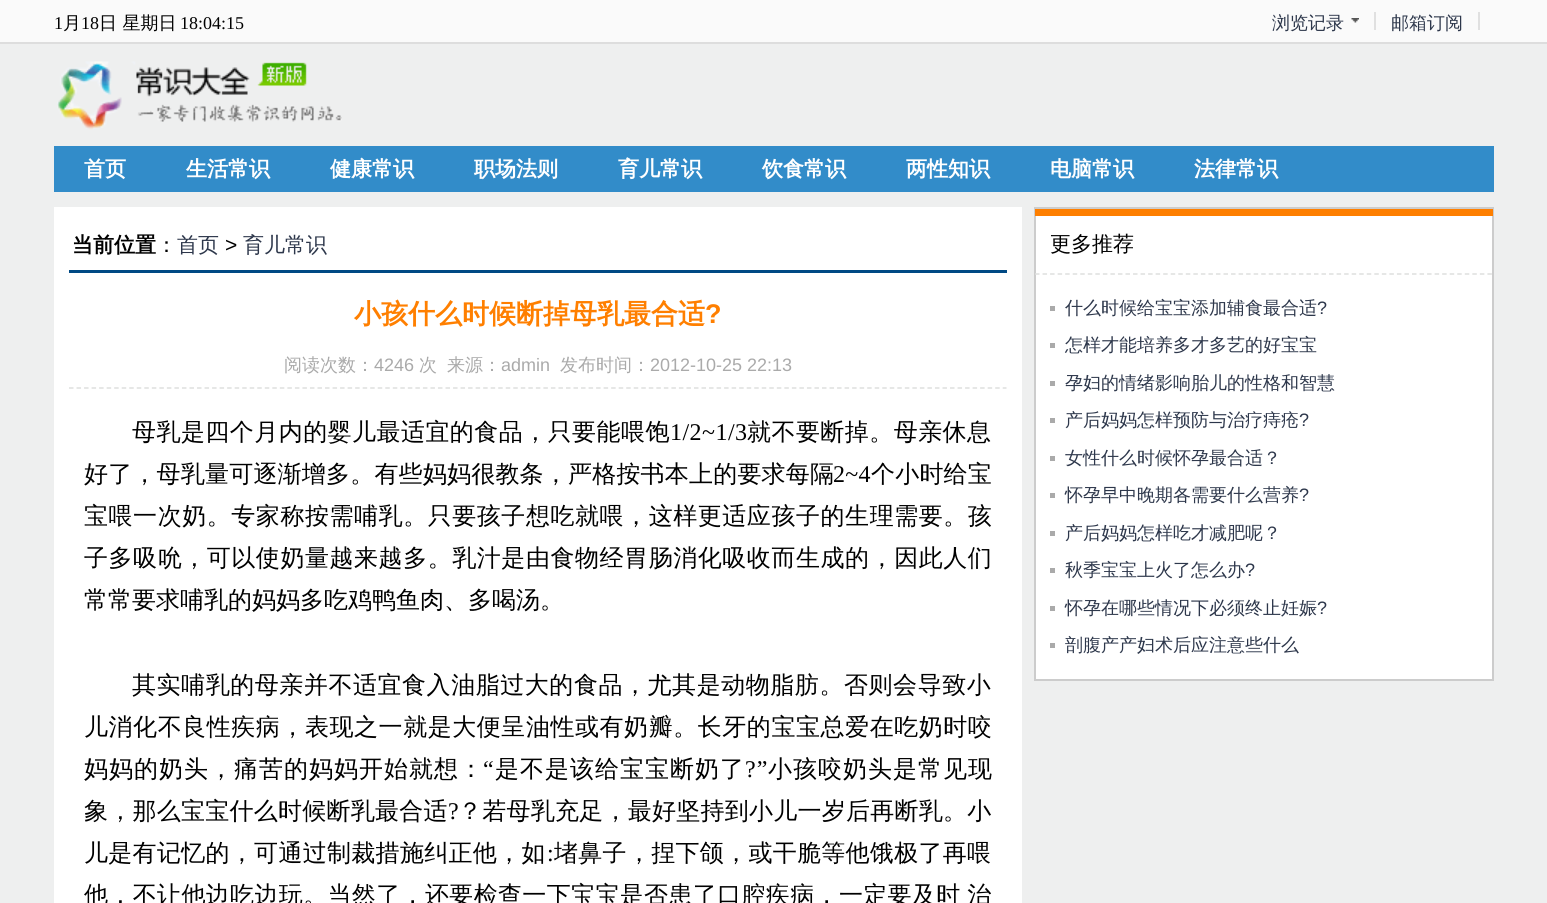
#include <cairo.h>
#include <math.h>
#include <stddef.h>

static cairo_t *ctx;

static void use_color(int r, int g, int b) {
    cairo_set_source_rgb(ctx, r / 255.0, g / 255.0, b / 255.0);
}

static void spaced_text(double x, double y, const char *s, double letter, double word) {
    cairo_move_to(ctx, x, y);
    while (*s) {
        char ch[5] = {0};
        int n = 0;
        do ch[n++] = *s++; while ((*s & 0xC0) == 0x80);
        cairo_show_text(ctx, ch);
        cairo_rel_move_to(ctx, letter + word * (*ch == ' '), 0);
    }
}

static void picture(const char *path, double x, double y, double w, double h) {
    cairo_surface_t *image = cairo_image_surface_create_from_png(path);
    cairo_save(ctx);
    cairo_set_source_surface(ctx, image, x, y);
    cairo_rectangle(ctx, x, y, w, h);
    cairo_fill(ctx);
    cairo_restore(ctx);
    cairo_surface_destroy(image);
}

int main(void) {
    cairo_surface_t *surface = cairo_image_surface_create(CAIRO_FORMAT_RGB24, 1547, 903);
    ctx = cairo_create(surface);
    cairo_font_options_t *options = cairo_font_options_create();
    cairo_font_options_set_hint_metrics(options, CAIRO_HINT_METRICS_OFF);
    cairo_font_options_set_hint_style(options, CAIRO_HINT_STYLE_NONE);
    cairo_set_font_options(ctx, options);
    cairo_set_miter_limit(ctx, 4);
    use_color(238, 239, 239);
    cairo_paint(ctx);
    use_color(250, 250, 250);
    cairo_rectangle(ctx, 0, 0, 1547, 42);
    cairo_fill(ctx);
    use_color(221, 221, 221);
    cairo_rectangle(ctx, 0, 42, 1547, 2);
    cairo_fill(ctx);
    cairo_select_font_face(ctx, "Liberation Serif", CAIRO_FONT_SLANT_NORMAL, CAIRO_FONT_WEIGHT_NORMAL);
    cairo_set_font_size(ctx, 18);
    use_color(0, 0, 0);
    cairo_move_to(ctx, 54, 29);
    cairo_show_text(ctx, "1");
    cairo_select_font_face(ctx, "WenQuanYi Zen Hei Medium", CAIRO_FONT_SLANT_NORMAL, CAIRO_FONT_WEIGHT_NORMAL);
    cairo_move_to(ctx, 63, 29);
    cairo_show_text(ctx, "月");
    cairo_select_font_face(ctx, "Liberation Serif", CAIRO_FONT_SLANT_NORMAL, CAIRO_FONT_WEIGHT_NORMAL);
    cairo_move_to(ctx, 81, 29);
    cairo_show_text(ctx, "18");
    cairo_select_font_face(ctx, "WenQuanYi Zen Hei Medium", CAIRO_FONT_SLANT_NORMAL, CAIRO_FONT_WEIGHT_NORMAL);
    cairo_move_to(ctx, 99, 29);
    cairo_show_text(ctx, "日 星期日");
    cairo_select_font_face(ctx, "Liberation Serif", CAIRO_FONT_SLANT_NORMAL, CAIRO_FONT_WEIGHT_NORMAL);
    cairo_move_to(ctx, 180, 29);
    cairo_show_text(ctx, "18:04:15");
    picture("img1.png", 1351, 18, 8, 5);
    cairo_select_font_face(ctx, "WenQuanYi Zen Hei Medium", CAIRO_FONT_SLANT_NORMAL, CAIRO_FONT_WEIGHT_NORMAL);
    use_color(45, 55, 75);
    cairo_move_to(ctx, 1272, 29);
    cairo_show_text(ctx, "浏览记录");
    use_color(224, 224, 224);
    cairo_rectangle(ctx, 1374, 12, 2, 18);
    cairo_fill(ctx);
    use_color(45, 55, 75);
    cairo_move_to(ctx, 1391, 29);
    cairo_show_text(ctx, "邮箱订阅");
    use_color(224, 224, 224);
    cairo_rectangle(ctx, 1478, 12, 2, 18);
    cairo_fill(ctx);
    picture("img2.png", 57, 61, 285, 69);
    use_color(50, 140, 201);
    cairo_rectangle(ctx, 54, 146, 1440, 46);
    cairo_fill(ctx);
    cairo_select_font_face(ctx, "WenQuanYi Zen Hei", CAIRO_FONT_SLANT_NORMAL, CAIRO_FONT_WEIGHT_BOLD);
    cairo_set_font_size(ctx, 21);
    use_color(255, 255, 255);
    cairo_move_to(ctx, 84, 176);
    cairo_show_text(ctx, "首页");
    cairo_move_to(ctx, 186, 176);
    cairo_show_text(ctx, "生活常识");
    cairo_move_to(ctx, 330, 176);
    cairo_show_text(ctx, "健康常识");
    cairo_move_to(ctx, 474, 176);
    cairo_show_text(ctx, "职场法则");
    cairo_move_to(ctx, 618, 176);
    cairo_show_text(ctx, "育儿常识");
    cairo_move_to(ctx, 762, 176);
    cairo_show_text(ctx, "饮食常识");
    cairo_move_to(ctx, 906, 176);
    cairo_show_text(ctx, "两性知识");
    cairo_move_to(ctx, 1050, 176);
    cairo_show_text(ctx, "电脑常识");
    cairo_move_to(ctx, 1194, 176);
    cairo_show_text(ctx, "法律常识");
    cairo_rectangle(ctx, 54, 207, 968, 696);
    cairo_fill(ctx);
    use_color(0, 73, 132);
    cairo_rectangle(ctx, 69, 270, 938, 3);
    cairo_fill(ctx);
    use_color(0, 0, 0);
    cairo_move_to(ctx, 72, 252);
    cairo_show_text(ctx, "当前位置");
    cairo_select_font_face(ctx, "WenQuanYi Zen Hei Medium", CAIRO_FONT_SLANT_NORMAL, CAIRO_FONT_WEIGHT_NORMAL);
    cairo_move_to(ctx, 156, 252);
    cairo_show_text(ctx, "：");
    use_color(45, 55, 75);
    cairo_move_to(ctx, 177, 252);
    cairo_show_text(ctx, "首页");
    cairo_select_font_face(ctx, "Liberation Sans", CAIRO_FONT_SLANT_NORMAL, CAIRO_FONT_WEIGHT_NORMAL);
    use_color(0, 0, 0);
    cairo_move_to(ctx, 225, 252);
    cairo_show_text(ctx, ">");
    cairo_select_font_face(ctx, "WenQuanYi Zen Hei Medium", CAIRO_FONT_SLANT_NORMAL, CAIRO_FONT_WEIGHT_NORMAL);
    use_color(45, 55, 75);
    cairo_move_to(ctx, 243, 252);
    cairo_show_text(ctx, "育儿常识");
    cairo_select_font_face(ctx, "WenQuanYi Zen Hei", CAIRO_FONT_SLANT_NORMAL, CAIRO_FONT_WEIGHT_BOLD);
    cairo_set_font_size(ctx, 27);
    use_color(255, 127, 0);
    cairo_move_to(ctx, 354, 323);
    cairo_show_text(ctx, "小孩什么时候断掉母乳最合适");
    cairo_select_font_face(ctx, "Liberation Sans", CAIRO_FONT_SLANT_NORMAL, CAIRO_FONT_WEIGHT_BOLD);
    cairo_move_to(ctx, 705, 323);
    cairo_show_text(ctx, "?");
    cairo_new_path(ctx);
    cairo_move_to(ctx, 69, 388);
    cairo_line_to(ctx, 1006.5, 388);
    use_color(222, 223, 222);
    cairo_set_line_width(ctx, 1.5);
    cairo_set_dash(ctx, (double[]){4.5, 3.03}, 2, 0);
    cairo_stroke(ctx);
    cairo_select_font_face(ctx, "WenQuanYi Zen Hei Medium", CAIRO_FONT_SLANT_NORMAL, CAIRO_FONT_WEIGHT_NORMAL);
    cairo_set_font_size(ctx, 18);
    use_color(170, 170, 170);
    cairo_move_to(ctx, 284, 371);
    cairo_show_text(ctx, "阅读次数：");
    cairo_select_font_face(ctx, "Liberation Sans", CAIRO_FONT_SLANT_NORMAL, CAIRO_FONT_WEIGHT_NORMAL);
    cairo_move_to(ctx, 374, 371);
    cairo_show_text(ctx, "4246");
    cairo_select_font_face(ctx, "WenQuanYi Zen Hei Medium", CAIRO_FONT_SLANT_NORMAL, CAIRO_FONT_WEIGHT_NORMAL);
    cairo_move_to(ctx, 419, 371);
    cairo_show_text(ctx, "次");
    cairo_move_to(ctx, 447, 371);
    cairo_show_text(ctx, "来源：");
    cairo_select_font_face(ctx, "Liberation Sans", CAIRO_FONT_SLANT_NORMAL, CAIRO_FONT_WEIGHT_NORMAL);
    cairo_move_to(ctx, 501, 371);
    cairo_show_text(ctx, "admin");
    cairo_select_font_face(ctx, "WenQuanYi Zen Hei Medium", CAIRO_FONT_SLANT_NORMAL, CAIRO_FONT_WEIGHT_NORMAL);
    cairo_move_to(ctx, 560, 371);
    cairo_show_text(ctx, "发布时间：");
    cairo_select_font_face(ctx, "Liberation Sans", CAIRO_FONT_SLANT_NORMAL, CAIRO_FONT_WEIGHT_NORMAL);
    cairo_move_to(ctx, 650, 371);
    cairo_show_text(ctx, "2012-10-25 22:13");
    cairo_select_font_face(ctx, "WenQuanYi Zen Hei Medium", CAIRO_FONT_SLANT_NORMAL, CAIRO_FONT_WEIGHT_NORMAL);
    cairo_set_font_size(ctx, 24);
    use_color(0, 0, 0);
    spaced_text(132, 440, "母乳是四个月内的婴儿最适宜的食品，只要能喂饱", 0.45, 0);
    cairo_select_font_face(ctx, "Liberation Serif", CAIRO_FONT_SLANT_NORMAL, CAIRO_FONT_WEIGHT_NORMAL);
    spaced_text(670, 440, "1/2~1/3", 0.45, 0);
    cairo_select_font_face(ctx, "WenQuanYi Zen Hei Medium", CAIRO_FONT_SLANT_NORMAL, CAIRO_FONT_WEIGHT_NORMAL);
    spaced_text(747, 440, "就不要断掉。母亲休息", 0.45, 0);
    spaced_text(84, 482, "好了，母乳量可逐渐增多。有些妈妈很教条，严格按书本上的要求每隔", 0.2, 0);
    cairo_select_font_face(ctx, "Liberation Serif", CAIRO_FONT_SLANT_NORMAL, CAIRO_FONT_WEIGHT_NORMAL);
    spaced_text(833, 482, "2~4", 0.2, 0);
    cairo_select_font_face(ctx, "WenQuanYi Zen Hei Medium", CAIRO_FONT_SLANT_NORMAL, CAIRO_FONT_WEIGHT_NORMAL);
    spaced_text(871, 482, "个小时给宝", 0.2, 0);
    spaced_text(84, 524, "宝喂一次奶。专家称按需哺乳。只要孩子想吃就喂，这样更适应孩子的生理需要。孩", 0.55, 0);
    spaced_text(84, 566, "子多吸吮，可以使奶量越来越多。乳汁是由食物经胃肠消化吸收而生成的，因此人们", 0.55, 0);
    cairo_move_to(ctx, 84, 608);
    cairo_show_text(ctx, "常常要求哺乳的妈妈多吃鸡鸭鱼肉、多喝汤。");
    spaced_text(132, 693, "其实哺乳的母亲并不适宜食入油脂过大的食品，尤其是动物脂肪。否则会导致小", 0.55, 0);
    spaced_text(84, 735, "儿消化不良性疾病，表现之一就是大便呈油性或有奶瓣。长牙的宝宝总爱在吃奶时咬", 0.55, 0);
    spaced_text(84, 777, "妈妈的奶头，痛苦的妈妈开始就想：", 1, 0);
    cairo_select_font_face(ctx, "Liberation Serif", CAIRO_FONT_SLANT_NORMAL, CAIRO_FONT_WEIGHT_NORMAL);
    spaced_text(483, 777, "“", 1, 0);
    cairo_select_font_face(ctx, "WenQuanYi Zen Hei Medium", CAIRO_FONT_SLANT_NORMAL, CAIRO_FONT_WEIGHT_NORMAL);
    spaced_text(495, 777, "是不是该给宝宝断奶了", 1, 0);
    cairo_select_font_face(ctx, "Liberation Serif", CAIRO_FONT_SLANT_NORMAL, CAIRO_FONT_WEIGHT_NORMAL);
    spaced_text(745, 777, "?”", 1, 0);
    cairo_select_font_face(ctx, "WenQuanYi Zen Hei Medium", CAIRO_FONT_SLANT_NORMAL, CAIRO_FONT_WEIGHT_NORMAL);
    spaced_text(768, 777, "小孩咬奶头是常见现", 1, 0);
    spaced_text(84, 819, "象，那么宝宝什么时候断乳最合适", 0.25, 0);
    cairo_select_font_face(ctx, "Liberation Serif", CAIRO_FONT_SLANT_NORMAL, CAIRO_FONT_WEIGHT_NORMAL);
    spaced_text(448, 819, "?", 0.25, 0);
    cairo_select_font_face(ctx, "WenQuanYi Zen Hei Medium", CAIRO_FONT_SLANT_NORMAL, CAIRO_FONT_WEIGHT_NORMAL);
    spaced_text(458, 819, "？若母乳充足，最好坚持到小儿一岁后再断乳。小", 0.25, 0);
    spaced_text(84, 861, "儿是有记忆的，可通过制裁措施纠正他，如", 0.3, 0);
    cairo_select_font_face(ctx, "Liberation Serif", CAIRO_FONT_SLANT_NORMAL, CAIRO_FONT_WEIGHT_NORMAL);
    spaced_text(547, 861, ":", 0.3, 0);
    cairo_select_font_face(ctx, "WenQuanYi Zen Hei Medium", CAIRO_FONT_SLANT_NORMAL, CAIRO_FONT_WEIGHT_NORMAL);
    spaced_text(554, 861, "堵鼻子，捏下颌，或干脆等他饿极了再喂", 0.3, 0);
    spaced_text(84, 903, "他，不让他边吃边玩。当然了，还要检查一下宝宝是否患了口腔疾病，一定要及时 治", 0.35, -1);
    use_color(255, 255, 255);
    cairo_rectangle(ctx, 1036, 216, 456, 463);
    cairo_fill(ctx);
    cairo_rectangle(ctx, 1035, 208, 458, 472);
    use_color(204, 204, 204);
    cairo_set_line_width(ctx, 2);
    cairo_set_dash(ctx, NULL, 0, 0);
    cairo_stroke(ctx);
    use_color(254, 127, 0);
    cairo_rectangle(ctx, 1035, 209, 458, 7);
    cairo_fill(ctx);
    cairo_set_font_size(ctx, 21);
    use_color(0, 0, 0);
    cairo_move_to(ctx, 1050, 251);
    cairo_show_text(ctx, "更多推荐");
    cairo_new_path(ctx);
    cairo_move_to(ctx, 1035, 274);
    cairo_line_to(ctx, 1492.5, 274);
    use_color(222, 223, 222);
    cairo_set_line_width(ctx, 1.5);
    cairo_set_dash(ctx, (double[]){4.5, 3.04}, 2, 0);
    cairo_stroke(ctx);
    use_color(170, 170, 170);
    cairo_rectangle(ctx, 1050, 306, 5, 5);
    cairo_fill(ctx);
    cairo_set_font_size(ctx, 18);
    use_color(45, 55, 75);
    cairo_move_to(ctx, 1065, 314);
    cairo_show_text(ctx, "什么时候给宝宝添加辅食最合适");
    cairo_select_font_face(ctx, "Liberation Sans", CAIRO_FONT_SLANT_NORMAL, CAIRO_FONT_WEIGHT_NORMAL);
    cairo_move_to(ctx, 1317, 314);
    cairo_show_text(ctx, "?");
    use_color(170, 170, 170);
    cairo_rectangle(ctx, 1050, 343, 5, 5);
    cairo_fill(ctx);
    cairo_select_font_face(ctx, "WenQuanYi Zen Hei Medium", CAIRO_FONT_SLANT_NORMAL, CAIRO_FONT_WEIGHT_NORMAL);
    use_color(45, 55, 75);
    cairo_move_to(ctx, 1065, 351);
    cairo_show_text(ctx, "怎样才能培养多才多艺的好宝宝");
    use_color(170, 170, 170);
    cairo_rectangle(ctx, 1050, 381, 5, 5);
    cairo_fill(ctx);
    use_color(45, 55, 75);
    cairo_move_to(ctx, 1065, 389);
    cairo_show_text(ctx, "孕妇的情绪影响胎儿的性格和智慧");
    use_color(170, 170, 170);
    cairo_rectangle(ctx, 1050, 418, 5, 5);
    cairo_fill(ctx);
    use_color(45, 55, 75);
    cairo_move_to(ctx, 1065, 426);
    cairo_show_text(ctx, "产后妈妈怎样预防与治疗痔疮");
    cairo_select_font_face(ctx, "Liberation Sans", CAIRO_FONT_SLANT_NORMAL, CAIRO_FONT_WEIGHT_NORMAL);
    cairo_move_to(ctx, 1299, 426);
    cairo_show_text(ctx, "?");
    use_color(170, 170, 170);
    cairo_rectangle(ctx, 1050, 456, 5, 5);
    cairo_fill(ctx);
    cairo_select_font_face(ctx, "WenQuanYi Zen Hei Medium", CAIRO_FONT_SLANT_NORMAL, CAIRO_FONT_WEIGHT_NORMAL);
    use_color(45, 55, 75);
    cairo_move_to(ctx, 1065, 464);
    cairo_show_text(ctx, "女性什么时候怀孕最合适？");
    use_color(170, 170, 170);
    cairo_rectangle(ctx, 1050, 493, 5, 5);
    cairo_fill(ctx);
    use_color(45, 55, 75);
    cairo_move_to(ctx, 1065, 501);
    cairo_show_text(ctx, "怀孕早中晚期各需要什么营养");
    cairo_select_font_face(ctx, "Liberation Sans", CAIRO_FONT_SLANT_NORMAL, CAIRO_FONT_WEIGHT_NORMAL);
    cairo_move_to(ctx, 1299, 501);
    cairo_show_text(ctx, "?");
    use_color(170, 170, 170);
    cairo_rectangle(ctx, 1050, 531, 5, 5);
    cairo_fill(ctx);
    cairo_select_font_face(ctx, "WenQuanYi Zen Hei Medium", CAIRO_FONT_SLANT_NORMAL, CAIRO_FONT_WEIGHT_NORMAL);
    use_color(45, 55, 75);
    cairo_move_to(ctx, 1065, 539);
    cairo_show_text(ctx, "产后妈妈怎样吃才减肥呢？");
    use_color(170, 170, 170);
    cairo_rectangle(ctx, 1050, 568, 5, 5);
    cairo_fill(ctx);
    use_color(45, 55, 75);
    cairo_move_to(ctx, 1065, 576);
    cairo_show_text(ctx, "秋季宝宝上火了怎么办");
    cairo_select_font_face(ctx, "Liberation Sans", CAIRO_FONT_SLANT_NORMAL, CAIRO_FONT_WEIGHT_NORMAL);
    cairo_move_to(ctx, 1245, 576);
    cairo_show_text(ctx, "?");
    use_color(170, 170, 170);
    cairo_rectangle(ctx, 1050, 606, 5, 5);
    cairo_fill(ctx);
    cairo_select_font_face(ctx, "WenQuanYi Zen Hei Medium", CAIRO_FONT_SLANT_NORMAL, CAIRO_FONT_WEIGHT_NORMAL);
    use_color(45, 55, 75);
    cairo_move_to(ctx, 1065, 614);
    cairo_show_text(ctx, "怀孕在哪些情况下必须终止妊娠");
    cairo_select_font_face(ctx, "Liberation Sans", CAIRO_FONT_SLANT_NORMAL, CAIRO_FONT_WEIGHT_NORMAL);
    cairo_move_to(ctx, 1317, 614);
    cairo_show_text(ctx, "?");
    use_color(170, 170, 170);
    cairo_rectangle(ctx, 1050, 643, 5, 5);
    cairo_fill(ctx);
    cairo_select_font_face(ctx, "WenQuanYi Zen Hei Medium", CAIRO_FONT_SLANT_NORMAL, CAIRO_FONT_WEIGHT_NORMAL);
    use_color(45, 55, 75);
    cairo_move_to(ctx, 1065, 651);
    cairo_show_text(ctx, "剖腹产产妇术后应注意些什么");
    cairo_surface_write_to_png(surface, "result.png");
    cairo_font_options_destroy(options);
    cairo_destroy(ctx);
    cairo_surface_destroy(surface);
    return 0;
}
